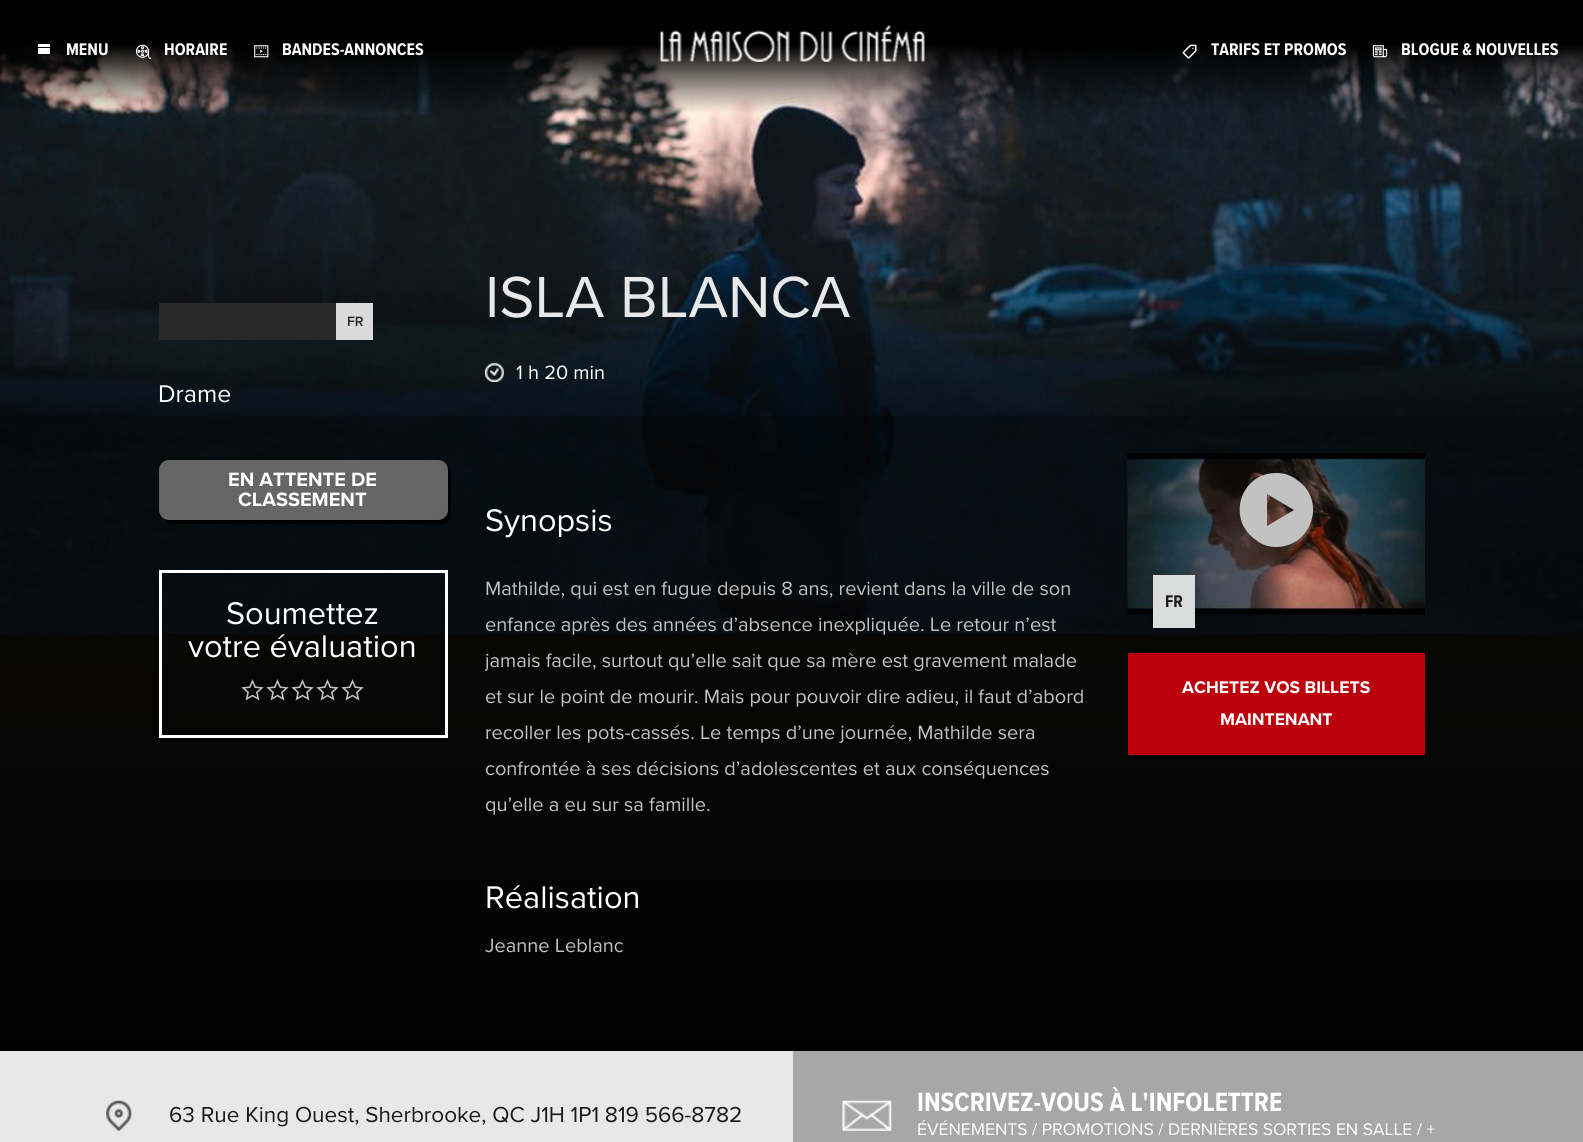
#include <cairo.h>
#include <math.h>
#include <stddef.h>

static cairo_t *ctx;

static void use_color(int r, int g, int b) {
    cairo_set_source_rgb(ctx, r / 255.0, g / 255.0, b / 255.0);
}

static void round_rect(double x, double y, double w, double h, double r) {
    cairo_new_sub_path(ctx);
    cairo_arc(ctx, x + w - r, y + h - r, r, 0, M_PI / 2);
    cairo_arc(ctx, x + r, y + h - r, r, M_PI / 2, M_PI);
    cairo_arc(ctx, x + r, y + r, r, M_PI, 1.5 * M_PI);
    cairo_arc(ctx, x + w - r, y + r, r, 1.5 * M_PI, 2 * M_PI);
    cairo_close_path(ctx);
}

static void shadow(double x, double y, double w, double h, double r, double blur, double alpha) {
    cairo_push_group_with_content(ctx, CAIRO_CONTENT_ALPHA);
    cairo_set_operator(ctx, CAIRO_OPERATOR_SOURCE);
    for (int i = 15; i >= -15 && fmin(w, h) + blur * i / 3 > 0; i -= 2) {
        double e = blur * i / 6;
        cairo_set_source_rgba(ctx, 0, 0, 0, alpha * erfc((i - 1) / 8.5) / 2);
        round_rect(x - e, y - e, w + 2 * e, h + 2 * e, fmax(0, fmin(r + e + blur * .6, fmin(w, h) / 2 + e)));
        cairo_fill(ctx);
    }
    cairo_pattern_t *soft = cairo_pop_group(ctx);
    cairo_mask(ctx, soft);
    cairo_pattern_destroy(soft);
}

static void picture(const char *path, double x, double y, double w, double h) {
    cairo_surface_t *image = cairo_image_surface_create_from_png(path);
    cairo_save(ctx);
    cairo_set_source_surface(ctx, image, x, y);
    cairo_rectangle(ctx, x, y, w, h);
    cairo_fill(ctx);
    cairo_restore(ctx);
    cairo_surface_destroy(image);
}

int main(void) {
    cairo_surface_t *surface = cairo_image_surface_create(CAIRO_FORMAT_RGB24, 1583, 1142);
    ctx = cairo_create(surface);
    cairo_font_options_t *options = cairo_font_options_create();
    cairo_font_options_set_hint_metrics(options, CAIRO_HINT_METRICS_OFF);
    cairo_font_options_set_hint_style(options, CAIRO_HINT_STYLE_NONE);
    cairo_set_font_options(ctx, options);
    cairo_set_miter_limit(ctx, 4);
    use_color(255, 255, 255);
    cairo_paint(ctx);
    picture("img1.png", 0, 633, 1583, 418);
    picture("img7.png", 0, 0, 1583, 634);
    picture("img2.png", 659, 25, 266, 37);
    use_color(255, 255, 255);
    cairo_rectangle(ctx, 38, 48, 12, 6);
    cairo_fill(ctx);
    cairo_rectangle(ctx, 38, 44, 12, 3);
    cairo_fill(ctx);
    cairo_select_font_face(ctx, "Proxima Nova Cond", CAIRO_FONT_SLANT_NORMAL, CAIRO_FONT_WEIGHT_BOLD);
    cairo_set_font_size(ctx, 17.5);
    cairo_move_to(ctx, 66, 55);
    cairo_show_text(ctx, "MENU");
    picture("img3.png", 135, 44, 17, 15);
    cairo_move_to(ctx, 164, 55);
    cairo_show_text(ctx, "HORAIRE");
    picture("img4.png", 254, 45, 15, 13);
    cairo_move_to(ctx, 282, 55);
    cairo_show_text(ctx, "BANDES-ANNONCES");
    picture("img5.png", 1182, 44, 15, 15);
    cairo_move_to(ctx, 1211, 55);
    cairo_show_text(ctx, "TARIFS ET PROMOS");
    picture("img6.png", 1372, 45, 16, 13);
    cairo_move_to(ctx, 1401, 55);
    cairo_show_text(ctx, "BLOGUE & NOUVELLES");
    use_color(40, 40, 40);
    cairo_rectangle(ctx, 159, 303, 177, 37);
    cairo_fill(ctx);
    use_color(218, 218, 218);
    cairo_rectangle(ctx, 336, 303, 37, 37);
    cairo_fill(ctx);
    cairo_select_font_face(ctx, "Proxima Nova SemiBold", CAIRO_FONT_SLANT_NORMAL, CAIRO_FONT_WEIGHT_NORMAL);
    cairo_set_font_size(ctx, 14);
    use_color(40, 40, 40);
    cairo_move_to(ctx, 347, 326);
    cairo_show_text(ctx, "FR");
    cairo_select_font_face(ctx, "Proxima Nova", CAIRO_FONT_SLANT_NORMAL, CAIRO_FONT_WEIGHT_NORMAL);
    cairo_set_font_size(ctx, 25);
    use_color(255, 255, 255);
    cairo_move_to(ctx, 158, 402);
    cairo_show_text(ctx, "Drame");
    cairo_set_source_rgba(ctx, 0, 0, 0, 0.7);
    cairo_rectangle(ctx, 0, 416, 1583, 635);
    cairo_fill(ctx);
    use_color(0, 0, 0);
    cairo_new_path(ctx);
    cairo_move_to(ctx, 164, 519);
    cairo_curve_to(ctx, 166, 522, 169, 524, 173, 524);
    cairo_line_to(ctx, 441, 524);
    cairo_curve_to(ctx, 447, 524, 451, 520, 451, 514);
    cairo_line_to(ctx, 451, 474);
    cairo_curve_to(ctx, 451, 471, 449, 467, 447, 466);
    cairo_line_to(ctx, 448, 470);
    cairo_line_to(ctx, 448, 510);
    cairo_curve_to(ctx, 448, 516, 443, 520, 438, 520);
    cairo_line_to(ctx, 169, 520);
    cairo_curve_to(ctx, 167, 520, 166, 520, 164, 519);
    cairo_close_path(ctx);
    cairo_fill(ctx);
    use_color(102, 102, 102);
    round_rect(159, 460, 289, 60, 10);
    cairo_fill(ctx);
    cairo_select_font_face(ctx, "Proxima Nova", CAIRO_FONT_SLANT_NORMAL, CAIRO_FONT_WEIGHT_BOLD);
    cairo_set_font_size(ctx, 20);
    use_color(255, 255, 255);
    cairo_move_to(ctx, 228, 486);
    cairo_show_text(ctx, "EN ATTENTE DE");
    cairo_move_to(ctx, 238, 506);
    cairo_show_text(ctx, "CLASSEMENT");
    cairo_rectangle(ctx, 160.5, 571.5, 286, 165);
    cairo_set_line_width(ctx, 3);
    cairo_stroke(ctx);
    cairo_select_font_face(ctx, "Proxima Nova", CAIRO_FONT_SLANT_NORMAL, CAIRO_FONT_WEIGHT_NORMAL);
    cairo_set_font_size(ctx, 32.5);
    cairo_move_to(ctx, 226, 624);
    cairo_show_text(ctx, "Soumettez");
    cairo_move_to(ctx, 188, 657);
    cairo_show_text(ctx, "votre évaluation");
    picture("img8.png", 241, 679, 23, 22);
    picture("img8.png", 266, 679, 23, 22);
    picture("img8.png", 291, 679, 23, 22);
    picture("img8.png", 316, 679, 23, 22);
    picture("img8.png", 341, 679, 23, 22);
    cairo_set_font_size(ctx, 60);
    use_color(232, 232, 232);
    cairo_move_to(ctx, 485, 317);
    cairo_show_text(ctx, "ISLA BLANCA");
    picture("img9.png", 485, 363, 19, 19);
    cairo_set_font_size(ctx, 20);
    use_color(255, 255, 255);
    cairo_move_to(ctx, 516, 379);
    cairo_show_text(ctx, "1 h 20 min");
    cairo_set_font_size(ctx, 32.5);
    cairo_move_to(ctx, 485, 531);
    cairo_show_text(ctx, "Synopsis");
    cairo_set_font_size(ctx, 20);
    use_color(194, 194, 194);
    cairo_move_to(ctx, 485, 595);
    cairo_show_text(ctx, "Mathilde, qui est en fugue depuis 8 ans, revient dans la ville de son");
    cairo_move_to(ctx, 485, 631);
    cairo_show_text(ctx, "enfance après des années d’absence inexpliquée. Le retour n’est");
    cairo_save(ctx);
    cairo_rectangle(ctx, 485, 551, 605, 292);
    cairo_clip(ctx);
    cairo_move_to(ctx, 485, 667);
    cairo_show_text(ctx, "jamais facile, surtout qu’elle sait que sa mère est gravement malade");
    cairo_restore(ctx);
    cairo_move_to(ctx, 485, 703);
    cairo_show_text(ctx, "et sur le point de mourir. Mais pour pouvoir dire adieu, il faut d’abord");
    cairo_move_to(ctx, 485, 739);
    cairo_show_text(ctx, "recoller les pots-cassés. Le temps d’une journée, Mathilde sera");
    cairo_move_to(ctx, 485, 775);
    cairo_show_text(ctx, "confrontée à ses décisions d’adolescentes et aux conséquences");
    cairo_move_to(ctx, 485, 811);
    cairo_show_text(ctx, "qu’elle a eu sur sa famille.");
    cairo_set_font_size(ctx, 32.5);
    use_color(255, 255, 255);
    cairo_move_to(ctx, 485, 908);
    cairo_show_text(ctx, "Réalisation");
    cairo_set_font_size(ctx, 20);
    use_color(194, 194, 194);
    cairo_move_to(ctx, 485, 952);
    cairo_show_text(ctx, "Jeanne Leblanc");
    picture("img10.png", 1127, 453, 298, 162);
    cairo_new_path(ctx);
    cairo_move_to(ctx, 1276, 473);
    cairo_curve_to(ctx, 1240, 473, 1226, 520, 1256, 540);
    cairo_curve_to(ctx, 1262, 545, 1269, 547, 1276, 547);
    cairo_curve_to(ctx, 1312, 547, 1327, 500, 1297, 480);
    cairo_curve_to(ctx, 1291, 475, 1284, 473, 1276, 473);
    cairo_close_path(ctx);
    cairo_move_to(ctx, 1267, 526);
    cairo_line_to(ctx, 1267, 494);
    cairo_line_to(ctx, 1294, 510);
    cairo_close_path(ctx);
    cairo_fill(ctx);
    use_color(0, 0, 0);
    shadow(1153, 575, 42, 53, 0, 6, 0.3);
    use_color(218, 219, 219);
    cairo_rectangle(ctx, 1153, 575, 42, 53);
    cairo_fill(ctx);
    cairo_select_font_face(ctx, "Proxima Nova Cond", CAIRO_FONT_SLANT_NORMAL, CAIRO_FONT_WEIGHT_BOLD);
    cairo_set_font_size(ctx, 17.5);
    use_color(26, 25, 24);
    cairo_move_to(ctx, 1165, 607);
    cairo_show_text(ctx, "FR");
    use_color(188, 1, 12);
    cairo_rectangle(ctx, 1128, 653, 297, 102);
    cairo_fill(ctx);
    cairo_select_font_face(ctx, "Proxima Nova", CAIRO_FONT_SLANT_NORMAL, CAIRO_FONT_WEIGHT_BOLD);
    use_color(255, 255, 255);
    cairo_move_to(ctx, 1182, 693);
    cairo_show_text(ctx, "ACHETEZ VOS BILLETS");
    cairo_move_to(ctx, 1220, 725);
    cairo_show_text(ctx, "MAINTENANT");
    use_color(232, 232, 232);
    cairo_rectangle(ctx, 0, 1051, 793, 91);
    cairo_fill(ctx);
    picture("img11.png", 106, 1100, 26, 31);
    cairo_select_font_face(ctx, "Proxima Nova", CAIRO_FONT_SLANT_NORMAL, CAIRO_FONT_WEIGHT_NORMAL);
    cairo_set_font_size(ctx, 22.5);
    use_color(26, 25, 24);
    cairo_move_to(ctx, 169, 1122);
    cairo_show_text(ctx, "63 Rue King Ouest, Sherbrooke, QC J1H 1P1 819 566-8782");
    use_color(167, 167, 167);
    cairo_rectangle(ctx, 793, 1051, 790, 91);
    cairo_fill(ctx);
    picture("img12.png", 842, 1100, 50, 31);
    cairo_select_font_face(ctx, "Proxima Nova Cond", CAIRO_FONT_SLANT_NORMAL, CAIRO_FONT_WEIGHT_BOLD);
    cairo_set_font_size(ctx, 27.5);
    use_color(255, 255, 255);
    cairo_move_to(ctx, 917, 1111);
    cairo_show_text(ctx, "INSCRIVEZ-VOUS À L'INFOLETTRE");
    cairo_select_font_face(ctx, "Proxima Nova", CAIRO_FONT_SLANT_NORMAL, CAIRO_FONT_WEIGHT_NORMAL);
    cairo_set_font_size(ctx, 17.5);
    cairo_move_to(ctx, 917, 1135);
    cairo_show_text(ctx, "ÉVÉNEMENTS / PROMOTIONS / DERNIÈRES SORTIES EN SALLE / +");
    cairo_surface_write_to_png(surface, "result.png");
    cairo_font_options_destroy(options);
    cairo_destroy(ctx);
    cairo_surface_destroy(surface);
    return 0;
}
